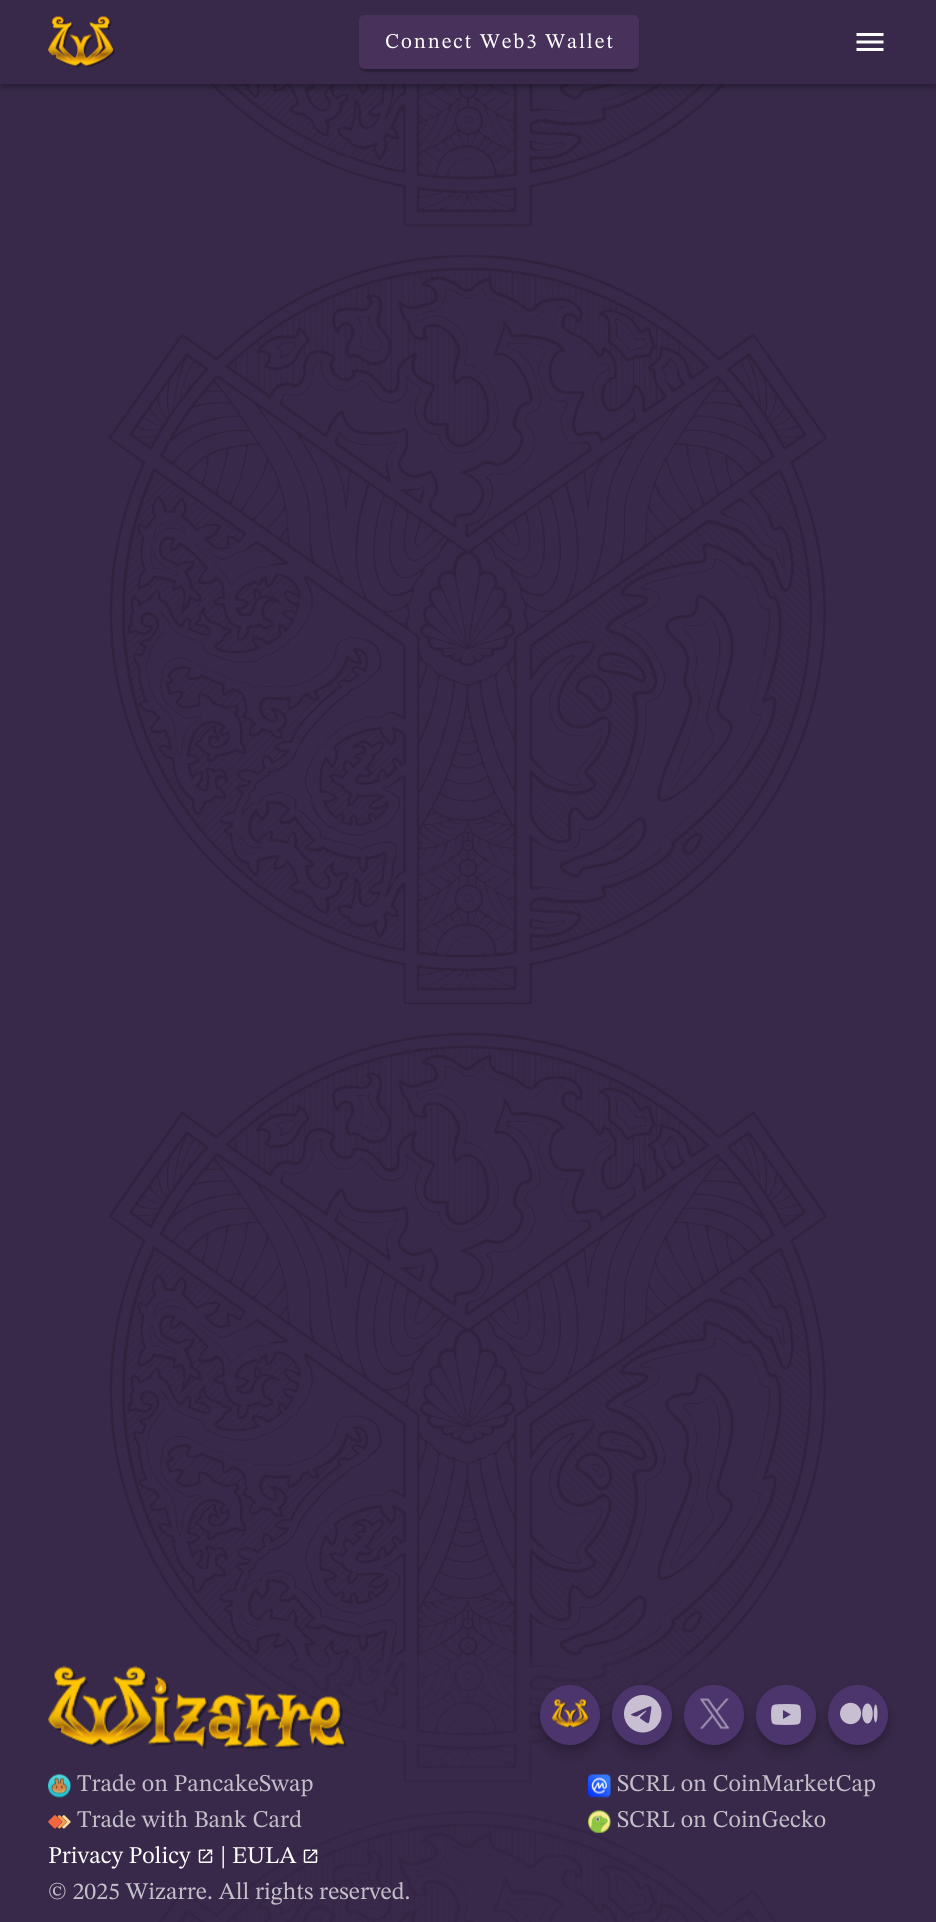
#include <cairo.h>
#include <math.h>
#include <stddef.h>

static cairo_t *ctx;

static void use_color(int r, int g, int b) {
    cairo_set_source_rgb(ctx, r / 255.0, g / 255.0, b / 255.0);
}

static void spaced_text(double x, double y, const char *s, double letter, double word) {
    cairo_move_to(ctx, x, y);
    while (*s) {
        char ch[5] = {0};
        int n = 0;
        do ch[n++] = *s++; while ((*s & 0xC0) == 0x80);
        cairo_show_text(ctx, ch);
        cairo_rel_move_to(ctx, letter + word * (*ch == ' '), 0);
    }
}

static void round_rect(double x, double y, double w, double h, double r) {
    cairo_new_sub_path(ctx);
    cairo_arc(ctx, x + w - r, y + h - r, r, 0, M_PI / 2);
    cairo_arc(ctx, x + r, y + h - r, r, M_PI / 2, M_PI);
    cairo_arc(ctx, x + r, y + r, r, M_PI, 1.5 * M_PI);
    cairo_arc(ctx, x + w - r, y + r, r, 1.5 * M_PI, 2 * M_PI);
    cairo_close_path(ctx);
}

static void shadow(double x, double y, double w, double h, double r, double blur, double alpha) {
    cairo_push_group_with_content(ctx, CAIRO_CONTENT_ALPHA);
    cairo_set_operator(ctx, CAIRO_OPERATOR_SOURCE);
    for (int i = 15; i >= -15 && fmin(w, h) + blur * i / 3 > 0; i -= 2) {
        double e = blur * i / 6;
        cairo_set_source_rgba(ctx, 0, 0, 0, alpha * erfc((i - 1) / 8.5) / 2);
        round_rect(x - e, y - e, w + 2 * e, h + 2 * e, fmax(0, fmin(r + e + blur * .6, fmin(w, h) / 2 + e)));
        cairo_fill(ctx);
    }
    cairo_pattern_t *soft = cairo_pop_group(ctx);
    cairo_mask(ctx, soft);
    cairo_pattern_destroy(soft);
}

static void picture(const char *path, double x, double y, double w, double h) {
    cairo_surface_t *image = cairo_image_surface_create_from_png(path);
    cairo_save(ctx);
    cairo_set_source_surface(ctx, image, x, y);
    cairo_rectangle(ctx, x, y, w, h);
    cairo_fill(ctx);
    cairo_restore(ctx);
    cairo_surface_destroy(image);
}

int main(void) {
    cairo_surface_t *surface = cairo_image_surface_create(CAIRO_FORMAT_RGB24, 936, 1922);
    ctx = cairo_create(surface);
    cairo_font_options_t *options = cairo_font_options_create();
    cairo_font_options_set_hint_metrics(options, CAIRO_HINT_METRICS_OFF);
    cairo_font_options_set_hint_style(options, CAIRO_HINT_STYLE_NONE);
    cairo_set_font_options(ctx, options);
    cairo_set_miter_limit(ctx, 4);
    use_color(56, 41, 74);
    cairo_paint(ctx);
    picture("img1.png", 108, 84, 719, 1838);
    use_color(0, 0, 0);
    shadow(0, 6, 936, 84, 0, 4, 0.14);
    shadow(2, 5, 933, 81, 0, 3, 0.2);
    use_color(56, 41, 74);
    cairo_rectangle(ctx, 0, 1, 936, 83);
    cairo_fill(ctx);
    picture("img2.png", 48, 16, 67, 52);
    use_color(0, 0, 0);
    shadow(359, 18, 280, 54, 6, 1.5, 0.14);
    shadow(362, 23, 274, 48, 3, 1, 0.2);
    use_color(72, 50, 91);
    round_rect(359, 15, 280, 54, 6);
    cairo_fill(ctx);
    cairo_select_font_face(ctx, "STIX Two Text", CAIRO_FONT_SLANT_NORMAL, CAIRO_FONT_WEIGHT_NORMAL);
    cairo_set_font_size(ctx, 21);
    use_color(255, 255, 255);
    spaced_text(385, 48, "Connect Web3 Wallet", 1.9, 0);
    picture("img3.png", 856, 33, 28, 18);
    cairo_set_source_rgba(ctx, 0.22, 0.161, 0.29, 0.5);
    cairo_rectangle(ctx, 159, 1655, 618, 267);
    cairo_fill(ctx);
    picture("img4.png", 48, 1666, 299, 84);
    picture("img12.png", 588, 1774, 23, 24);
    use_color(0, 0, 0);
    shadow(540, 1694, 60, 60, 30, 7.5, 0.14);
    shadow(542, 1691, 57, 57, 28.5, 4, 0.2);
    use_color(76, 53, 109);
    cairo_arc(ctx, 570, 1715, 30, 0, 2 * M_PI);
    cairo_fill(ctx);
    picture("img5.png", 552, 1699, 38, 30);
    use_color(0, 0, 0);
    shadow(612, 1694, 60, 60, 30, 7.5, 0.14);
    shadow(614, 1691, 57, 57, 28.5, 4, 0.2);
    use_color(76, 53, 109);
    cairo_arc(ctx, 642, 1715, 30, 0, 2 * M_PI);
    cairo_fill(ctx);
    picture("img6.png", 624, 1695, 38, 38);
    use_color(0, 0, 0);
    shadow(684, 1694, 60, 60, 30, 7.5, 0.14);
    shadow(686, 1691, 57, 57, 28.5, 4, 0.2);
    use_color(76, 53, 109);
    cairo_arc(ctx, 714, 1715, 30, 0, 2 * M_PI);
    cairo_fill(ctx);
    picture("img7.png", 700, 1698, 30, 32);
    use_color(0, 0, 0);
    shadow(756, 1694, 60, 60, 30, 7.5, 0.14);
    shadow(758, 1691, 57, 57, 28.5, 4, 0.2);
    use_color(76, 53, 109);
    cairo_arc(ctx, 786, 1715, 30, 0, 2 * M_PI);
    cairo_fill(ctx);
    picture("img8.png", 771, 1704, 30, 21);
    use_color(0, 0, 0);
    shadow(828, 1694, 60, 60, 30, 7.5, 0.14);
    shadow(830, 1691, 57, 57, 28.5, 4, 0.2);
    use_color(76, 53, 109);
    cairo_arc(ctx, 858, 1715, 30, 0, 2 * M_PI);
    cairo_fill(ctx);
    picture("img9.png", 840, 1702, 38, 23);
    picture("img10.png", 48, 1774, 23, 24);
    cairo_set_font_size(ctx, 24);
    use_color(195, 191, 201);
    cairo_move_to(ctx, 77, 1791);
    cairo_show_text(ctx, "Trade on PancakeSwap");
    picture("img11.png", 48, 1815, 23, 14);
    cairo_move_to(ctx, 77, 1827);
    cairo_show_text(ctx, "Trade with Bank Card");
    cairo_move_to(ctx, 617, 1791);
    cairo_show_text(ctx, "SCRL on CoinMarketCap");
    picture("img13.png", 588, 1810, 23, 23);
    cairo_move_to(ctx, 617, 1827);
    cairo_show_text(ctx, "SCRL on CoinGecko");
    use_color(255, 255, 255);
    cairo_move_to(ctx, 48, 1863);
    cairo_show_text(ctx, "Privacy Policy");
    picture("img14.png", 198, 1849, 15, 14);
    cairo_move_to(ctx, 220, 1863);
    cairo_show_text(ctx, "| EULA");
    picture("img15.png", 303, 1849, 15, 14);
    use_color(195, 191, 201);
    cairo_move_to(ctx, 48, 1899);
    cairo_show_text(ctx, "© 2025 Wizarre. All rights reserved.");
    cairo_surface_write_to_png(surface, "result.png");
    cairo_font_options_destroy(options);
    cairo_destroy(ctx);
    cairo_surface_destroy(surface);
    return 0;
}
